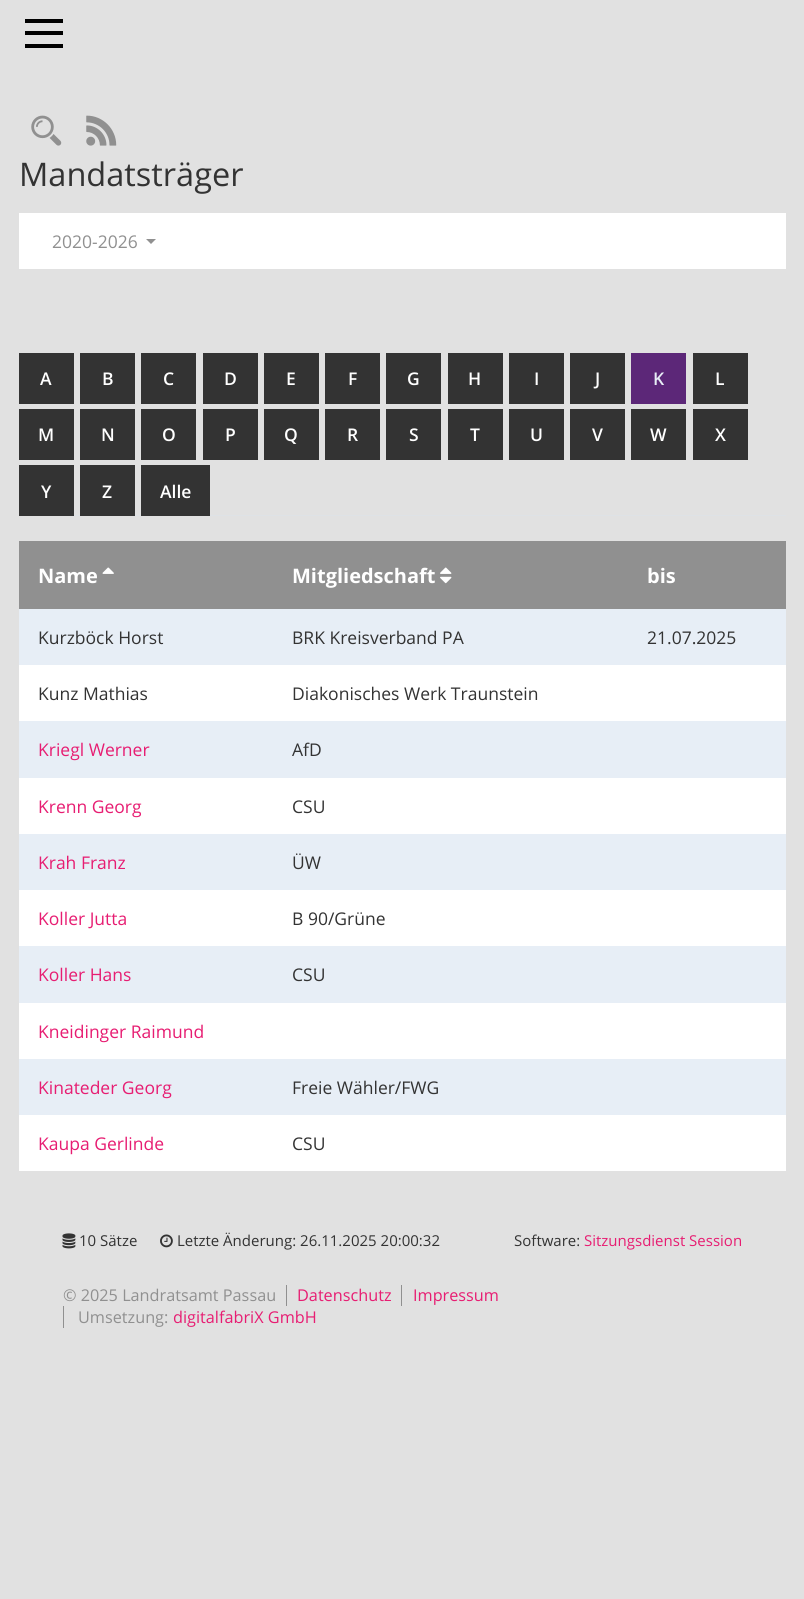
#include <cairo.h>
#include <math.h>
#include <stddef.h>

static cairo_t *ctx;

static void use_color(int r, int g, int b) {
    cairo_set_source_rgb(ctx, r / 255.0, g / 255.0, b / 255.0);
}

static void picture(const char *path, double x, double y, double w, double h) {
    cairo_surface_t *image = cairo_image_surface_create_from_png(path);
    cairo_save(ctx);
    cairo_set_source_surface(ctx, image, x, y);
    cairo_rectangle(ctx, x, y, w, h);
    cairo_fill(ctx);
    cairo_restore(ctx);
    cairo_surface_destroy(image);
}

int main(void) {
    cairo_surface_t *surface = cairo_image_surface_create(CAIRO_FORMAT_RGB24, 804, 1599);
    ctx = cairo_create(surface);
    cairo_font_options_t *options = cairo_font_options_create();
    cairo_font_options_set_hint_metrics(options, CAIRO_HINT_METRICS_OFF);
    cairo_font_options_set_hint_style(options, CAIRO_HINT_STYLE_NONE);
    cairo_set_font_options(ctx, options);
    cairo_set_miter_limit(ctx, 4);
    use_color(225, 225, 225);
    cairo_paint(ctx);
    use_color(0, 0, 0);
    cairo_rectangle(ctx, 25, 19, 38, 4);
    cairo_fill(ctx);
    cairo_rectangle(ctx, 25, 31, 38, 4);
    cairo_fill(ctx);
    cairo_rectangle(ctx, 25, 44, 38, 4);
    cairo_fill(ctx);
    picture("img1.png", 31, 115, 31, 31);
    picture("img2.png", 86, 115, 31, 31);
    cairo_select_font_face(ctx, "Open Sans", CAIRO_FONT_SLANT_NORMAL, CAIRO_FONT_WEIGHT_NORMAL);
    cairo_set_font_size(ctx, 32.5);
    use_color(51, 51, 51);
    cairo_move_to(ctx, 19, 186);
    cairo_show_text(ctx, "Mandatsträger");
    use_color(255, 255, 255);
    cairo_rectangle(ctx, 19, 213, 767, 56);
    cairo_fill(ctx);
    cairo_set_font_size(ctx, 17.5);
    use_color(144, 144, 144);
    cairo_move_to(ctx, 52, 248);
    cairo_show_text(ctx, "2020-2026");
    cairo_new_path(ctx);
    cairo_move_to(ctx, 146, 239);
    cairo_line_to(ctx, 156, 239);
    cairo_line_to(ctx, 151, 244);
    cairo_close_path(ctx);
    cairo_fill(ctx);
    use_color(222, 226, 230);
    cairo_rectangle(ctx, 74, 515, 712, 1);
    cairo_fill(ctx);
    use_color(51, 51, 51);
    cairo_rectangle(ctx, 19, 353, 55, 51);
    cairo_fill(ctx);
    cairo_select_font_face(ctx, "Open Sans SemiBold", CAIRO_FONT_SLANT_NORMAL, CAIRO_FONT_WEIGHT_NORMAL);
    use_color(255, 255, 255);
    cairo_move_to(ctx, 40, 385);
    cairo_show_text(ctx, "A");
    use_color(51, 51, 51);
    cairo_rectangle(ctx, 80, 353, 55, 51);
    cairo_fill(ctx);
    use_color(255, 255, 255);
    cairo_move_to(ctx, 102, 385);
    cairo_show_text(ctx, "B");
    use_color(51, 51, 51);
    cairo_rectangle(ctx, 141, 353, 55, 51);
    cairo_fill(ctx);
    use_color(255, 255, 255);
    cairo_move_to(ctx, 163, 385);
    cairo_show_text(ctx, "C");
    use_color(51, 51, 51);
    cairo_rectangle(ctx, 203, 353, 55, 51);
    cairo_fill(ctx);
    use_color(255, 255, 255);
    cairo_move_to(ctx, 224, 385);
    cairo_show_text(ctx, "D");
    use_color(51, 51, 51);
    cairo_rectangle(ctx, 264, 353, 55, 51);
    cairo_fill(ctx);
    use_color(255, 255, 255);
    cairo_move_to(ctx, 286, 385);
    cairo_show_text(ctx, "E");
    use_color(51, 51, 51);
    cairo_rectangle(ctx, 325, 353, 55, 51);
    cairo_fill(ctx);
    use_color(255, 255, 255);
    cairo_move_to(ctx, 348, 385);
    cairo_show_text(ctx, "F");
    use_color(51, 51, 51);
    cairo_rectangle(ctx, 386, 353, 55, 51);
    cairo_fill(ctx);
    use_color(255, 255, 255);
    cairo_move_to(ctx, 407, 385);
    cairo_show_text(ctx, "G");
    use_color(51, 51, 51);
    cairo_rectangle(ctx, 448, 353, 55, 51);
    cairo_fill(ctx);
    use_color(255, 255, 255);
    cairo_move_to(ctx, 468, 385);
    cairo_show_text(ctx, "H");
    use_color(51, 51, 51);
    cairo_rectangle(ctx, 509, 353, 55, 51);
    cairo_fill(ctx);
    use_color(255, 255, 255);
    cairo_move_to(ctx, 534, 385);
    cairo_show_text(ctx, "I");
    use_color(51, 51, 51);
    cairo_rectangle(ctx, 570, 353, 55, 51);
    cairo_fill(ctx);
    use_color(255, 255, 255);
    cairo_move_to(ctx, 595, 385);
    cairo_show_text(ctx, "J");
    use_color(92, 39, 120);
    cairo_rectangle(ctx, 631, 353, 55, 51);
    cairo_fill(ctx);
    use_color(231, 238, 246);
    cairo_move_to(ctx, 653, 385);
    cairo_show_text(ctx, "K");
    use_color(51, 51, 51);
    cairo_rectangle(ctx, 693, 353, 55, 51);
    cairo_fill(ctx);
    use_color(255, 255, 255);
    cairo_move_to(ctx, 715, 385);
    cairo_show_text(ctx, "L");
    use_color(51, 51, 51);
    cairo_rectangle(ctx, 19, 409, 55, 51);
    cairo_fill(ctx);
    use_color(255, 255, 255);
    cairo_move_to(ctx, 38, 441);
    cairo_show_text(ctx, "M");
    use_color(51, 51, 51);
    cairo_rectangle(ctx, 80, 409, 55, 51);
    cairo_fill(ctx);
    use_color(255, 255, 255);
    cairo_move_to(ctx, 101, 441);
    cairo_show_text(ctx, "N");
    use_color(51, 51, 51);
    cairo_rectangle(ctx, 141, 409, 55, 51);
    cairo_fill(ctx);
    use_color(255, 255, 255);
    cairo_move_to(ctx, 162, 441);
    cairo_show_text(ctx, "O");
    use_color(51, 51, 51);
    cairo_rectangle(ctx, 203, 409, 55, 51);
    cairo_fill(ctx);
    use_color(255, 255, 255);
    cairo_move_to(ctx, 225, 441);
    cairo_show_text(ctx, "P");
    use_color(51, 51, 51);
    cairo_rectangle(ctx, 264, 409, 55, 51);
    cairo_fill(ctx);
    use_color(255, 255, 255);
    cairo_move_to(ctx, 284, 441);
    cairo_show_text(ctx, "Q");
    use_color(51, 51, 51);
    cairo_rectangle(ctx, 325, 409, 55, 51);
    cairo_fill(ctx);
    use_color(255, 255, 255);
    cairo_move_to(ctx, 347, 441);
    cairo_show_text(ctx, "R");
    use_color(51, 51, 51);
    cairo_rectangle(ctx, 386, 409, 55, 51);
    cairo_fill(ctx);
    use_color(255, 255, 255);
    cairo_move_to(ctx, 409, 441);
    cairo_show_text(ctx, "S");
    use_color(51, 51, 51);
    cairo_rectangle(ctx, 448, 409, 55, 51);
    cairo_fill(ctx);
    use_color(255, 255, 255);
    cairo_move_to(ctx, 470, 441);
    cairo_show_text(ctx, "T");
    use_color(51, 51, 51);
    cairo_rectangle(ctx, 509, 409, 55, 51);
    cairo_fill(ctx);
    use_color(255, 255, 255);
    cairo_move_to(ctx, 530, 441);
    cairo_show_text(ctx, "U");
    use_color(51, 51, 51);
    cairo_rectangle(ctx, 570, 409, 55, 51);
    cairo_fill(ctx);
    use_color(255, 255, 255);
    cairo_move_to(ctx, 592, 441);
    cairo_show_text(ctx, "V");
    use_color(51, 51, 51);
    cairo_rectangle(ctx, 631, 409, 55, 51);
    cairo_fill(ctx);
    use_color(255, 255, 255);
    cairo_move_to(ctx, 650, 441);
    cairo_show_text(ctx, "W");
    use_color(51, 51, 51);
    cairo_rectangle(ctx, 693, 409, 55, 51);
    cairo_fill(ctx);
    use_color(255, 255, 255);
    cairo_move_to(ctx, 715, 441);
    cairo_show_text(ctx, "X");
    use_color(51, 51, 51);
    cairo_rectangle(ctx, 19, 465, 55, 51);
    cairo_fill(ctx);
    use_color(255, 255, 255);
    cairo_move_to(ctx, 41, 498);
    cairo_show_text(ctx, "Y");
    use_color(51, 51, 51);
    cairo_rectangle(ctx, 80, 465, 55, 51);
    cairo_fill(ctx);
    use_color(255, 255, 255);
    cairo_move_to(ctx, 102, 498);
    cairo_show_text(ctx, "Z");
    use_color(51, 51, 51);
    cairo_rectangle(ctx, 141, 465, 69, 51);
    cairo_fill(ctx);
    use_color(255, 255, 255);
    cairo_move_to(ctx, 160, 498);
    cairo_show_text(ctx, "Alle");
    cairo_rectangle(ctx, 19, 665, 767, 506);
    cairo_fill(ctx);
    use_color(144, 144, 144);
    cairo_rectangle(ctx, 19, 541, 767, 68);
    cairo_fill(ctx);
    cairo_select_font_face(ctx, "Open Sans", CAIRO_FONT_SLANT_NORMAL, CAIRO_FONT_WEIGHT_BOLD);
    cairo_set_font_size(ctx, 20);
    use_color(255, 255, 255);
    cairo_move_to(ctx, 38, 583);
    cairo_show_text(ctx, "Name");
    picture("img3.png", 102, 567, 12, 7);
    cairo_move_to(ctx, 292, 583);
    cairo_show_text(ctx, "Mitgliedschaft");
    picture("img4.png", 440, 567, 12, 17);
    cairo_move_to(ctx, 647, 583);
    cairo_show_text(ctx, "bis");
    use_color(231, 238, 246);
    cairo_rectangle(ctx, 19, 609, 767, 56);
    cairo_fill(ctx);
    cairo_select_font_face(ctx, "Open Sans", CAIRO_FONT_SLANT_NORMAL, CAIRO_FONT_WEIGHT_NORMAL);
    cairo_set_font_size(ctx, 17.5);
    use_color(51, 51, 51);
    cairo_move_to(ctx, 38, 644);
    cairo_show_text(ctx, "Kurzböck Horst");
    cairo_move_to(ctx, 292, 644);
    cairo_show_text(ctx, "BRK Kreisverband PA");
    cairo_move_to(ctx, 647, 644);
    cairo_show_text(ctx, "21.07.2025");
    cairo_move_to(ctx, 38, 700);
    cairo_show_text(ctx, "Kunz Mathias");
    cairo_move_to(ctx, 292, 700);
    cairo_show_text(ctx, "Diakonisches Werk Traunstein");
    use_color(231, 238, 246);
    cairo_rectangle(ctx, 19, 721, 767, 57);
    cairo_fill(ctx);
    use_color(231, 29, 114);
    cairo_move_to(ctx, 38, 756);
    cairo_show_text(ctx, "Kriegl Werner");
    use_color(51, 51, 51);
    cairo_move_to(ctx, 292, 756);
    cairo_show_text(ctx, "AfD");
    use_color(231, 29, 114);
    cairo_move_to(ctx, 38, 813);
    cairo_show_text(ctx, "Krenn Georg");
    use_color(51, 51, 51);
    cairo_move_to(ctx, 292, 813);
    cairo_show_text(ctx, "CSU");
    use_color(231, 238, 246);
    cairo_rectangle(ctx, 19, 834, 767, 56);
    cairo_fill(ctx);
    use_color(231, 29, 114);
    cairo_move_to(ctx, 38, 869);
    cairo_show_text(ctx, "Krah Franz");
    use_color(51, 51, 51);
    cairo_move_to(ctx, 292, 869);
    cairo_show_text(ctx, "ÜW");
    use_color(231, 29, 114);
    cairo_move_to(ctx, 38, 925);
    cairo_show_text(ctx, "Koller Jutta");
    use_color(51, 51, 51);
    cairo_move_to(ctx, 292, 925);
    cairo_show_text(ctx, "B 90/Grüne");
    use_color(231, 238, 246);
    cairo_rectangle(ctx, 19, 946, 767, 57);
    cairo_fill(ctx);
    use_color(231, 29, 114);
    cairo_move_to(ctx, 38, 981);
    cairo_show_text(ctx, "Koller Hans");
    use_color(51, 51, 51);
    cairo_move_to(ctx, 292, 981);
    cairo_show_text(ctx, "CSU");
    use_color(231, 29, 114);
    cairo_move_to(ctx, 38, 1038);
    cairo_show_text(ctx, "Kneidinger Raimund");
    use_color(231, 238, 246);
    cairo_rectangle(ctx, 19, 1059, 767, 56);
    cairo_fill(ctx);
    use_color(231, 29, 114);
    cairo_move_to(ctx, 38, 1094);
    cairo_show_text(ctx, "Kinateder Georg");
    use_color(51, 51, 51);
    cairo_move_to(ctx, 292, 1094);
    cairo_show_text(ctx, "Freie Wähler/FWG");
    use_color(231, 29, 114);
    cairo_move_to(ctx, 38, 1150);
    cairo_show_text(ctx, "Kaupa Gerlinde");
    use_color(51, 51, 51);
    cairo_move_to(ctx, 292, 1150);
    cairo_show_text(ctx, "CSU");
    picture("img5.png", 62, 1233, 14, 16);
    cairo_set_font_size(ctx, 15);
    cairo_move_to(ctx, 79, 1246);
    cairo_show_text(ctx, "10 Sätze");
    picture("img6.png", 160, 1234, 13, 14);
    cairo_move_to(ctx, 177, 1246);
    cairo_show_text(ctx, "Letzte Änderung: 26.11.2025 20:00:32");
    cairo_move_to(ctx, 514, 1246);
    cairo_show_text(ctx, "Software:");
    use_color(231, 29, 114);
    cairo_move_to(ctx, 584, 1246);
    cairo_show_text(ctx, "Sitzungsdienst Session");
    cairo_set_font_size(ctx, 16.25);
    use_color(144, 144, 144);
    cairo_move_to(ctx, 63, 1301);
    cairo_show_text(ctx, "© 2025 Landratsamt Passau");
    cairo_rectangle(ctx, 286, 1285, 1, 21);
    cairo_fill(ctx);
    use_color(231, 29, 114);
    cairo_move_to(ctx, 297, 1301);
    cairo_show_text(ctx, "Datenschutz");
    use_color(144, 144, 144);
    cairo_rectangle(ctx, 401, 1285, 1, 21);
    cairo_fill(ctx);
    use_color(231, 29, 114);
    cairo_move_to(ctx, 413, 1301);
    cairo_show_text(ctx, "Impressum");
    use_color(144, 144, 144);
    cairo_rectangle(ctx, 63, 1306, 1, 22);
    cairo_fill(ctx);
    cairo_move_to(ctx, 78, 1323);
    cairo_show_text(ctx, "Umsetzung:");
    use_color(231, 29, 114);
    cairo_move_to(ctx, 173, 1323);
    cairo_show_text(ctx, "digitalfabriX GmbH");
    cairo_surface_write_to_png(surface, "result.png");
    cairo_font_options_destroy(options);
    cairo_destroy(ctx);
    cairo_surface_destroy(surface);
    return 0;
}
